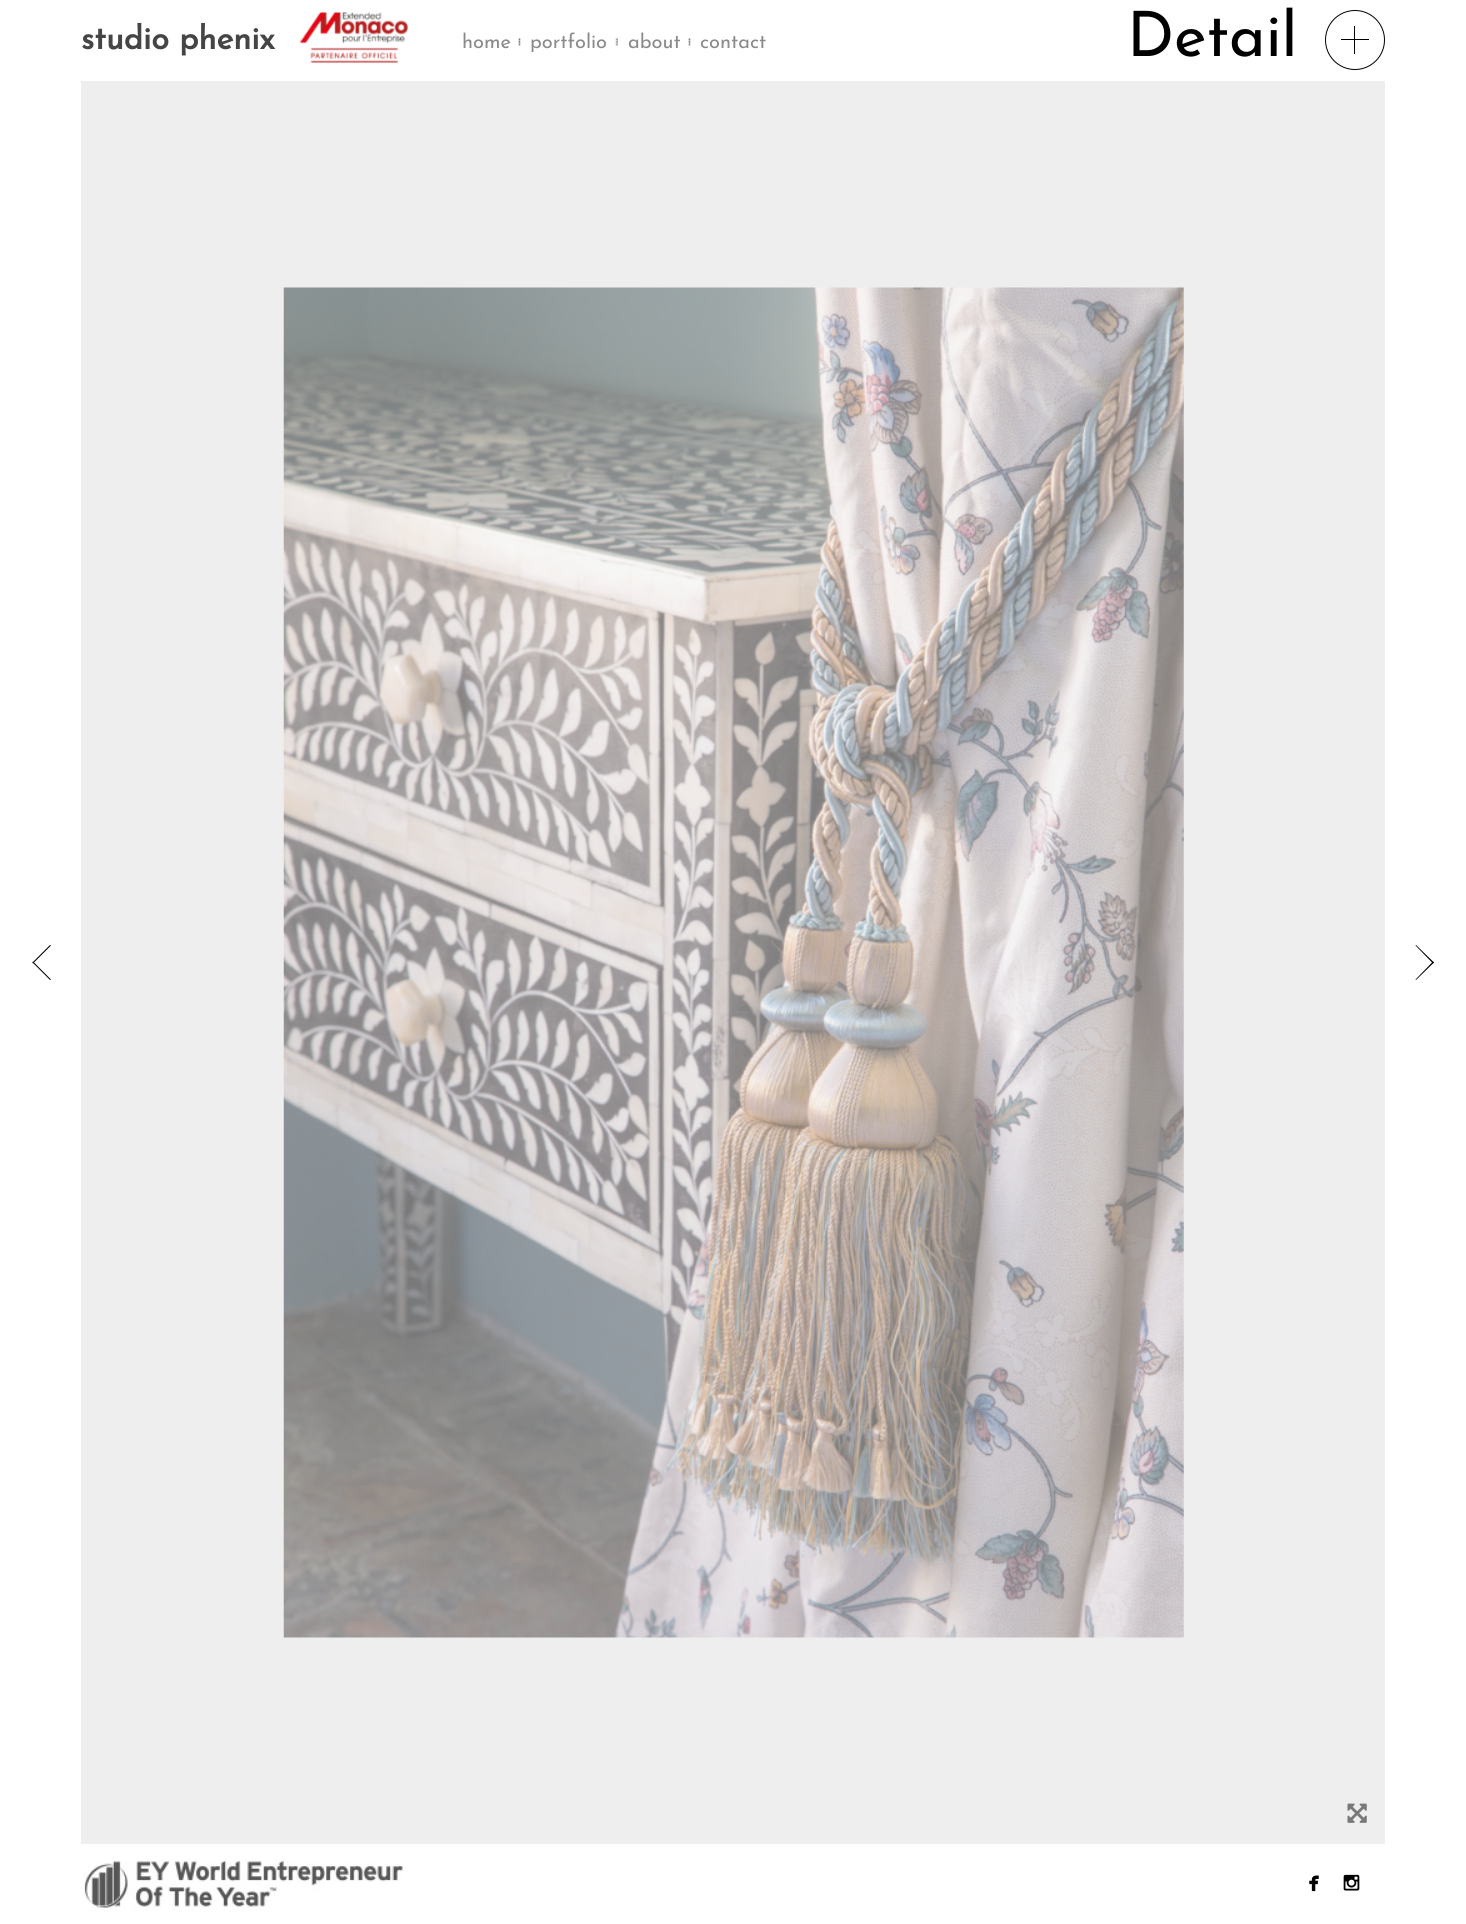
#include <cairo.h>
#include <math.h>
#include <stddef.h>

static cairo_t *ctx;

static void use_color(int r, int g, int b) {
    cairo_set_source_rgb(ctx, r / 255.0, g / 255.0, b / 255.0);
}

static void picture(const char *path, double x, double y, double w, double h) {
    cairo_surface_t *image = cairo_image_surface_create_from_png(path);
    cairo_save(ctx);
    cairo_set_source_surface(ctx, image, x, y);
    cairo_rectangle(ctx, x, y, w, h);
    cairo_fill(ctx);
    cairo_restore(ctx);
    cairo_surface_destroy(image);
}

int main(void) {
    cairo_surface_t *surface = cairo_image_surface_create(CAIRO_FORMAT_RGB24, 1466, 1924);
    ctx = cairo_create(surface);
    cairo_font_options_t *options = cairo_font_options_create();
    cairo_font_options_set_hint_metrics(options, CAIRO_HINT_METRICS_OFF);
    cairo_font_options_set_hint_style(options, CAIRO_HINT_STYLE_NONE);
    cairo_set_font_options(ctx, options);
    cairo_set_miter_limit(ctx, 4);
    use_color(255, 255, 255);
    cairo_paint(ctx);
    cairo_select_font_face(ctx, "Josefin Sans", CAIRO_FONT_SLANT_NORMAL, CAIRO_FONT_WEIGHT_BOLD);
    cairo_set_font_size(ctx, 32.5);
    use_color(69, 69, 69);
    cairo_move_to(ctx, 81, 49);
    cairo_show_text(ctx, "studio phenix");
    picture("img1.png", 299, 12, 109, 51);
    cairo_select_font_face(ctx, "Josefin Sans Thin", CAIRO_FONT_SLANT_NORMAL, CAIRO_FONT_WEIGHT_NORMAL);
    cairo_set_font_size(ctx, 20);
    use_color(138, 138, 138);
    cairo_move_to(ctx, 462, 48);
    cairo_show_text(ctx, "home");
    picture("img2.png", 518, 38, 3, 8);
    cairo_move_to(ctx, 530, 48);
    cairo_show_text(ctx, "portfolio");
    picture("img3.png", 615, 38, 3, 8);
    cairo_move_to(ctx, 628, 48);
    cairo_show_text(ctx, "about");
    picture("img2.png", 688, 38, 3, 8);
    cairo_move_to(ctx, 700, 48);
    cairo_show_text(ctx, "contact");
    cairo_set_font_size(ctx, 62.5);
    use_color(0, 0, 0);
    cairo_move_to(ctx, 1127, 56);
    cairo_show_text(ctx, "Detail");
    cairo_new_path(ctx);
    cairo_arc(ctx, 1355, 40, 29.5, 0, 2 * M_PI);
    cairo_set_line_width(ctx, 1);
    cairo_stroke(ctx);
    cairo_rectangle(ctx, 1341, 39, 28, 1);
    cairo_fill(ctx);
    cairo_rectangle(ctx, 1354, 26, 1, 28);
    cairo_fill(ctx);
    cairo_new_path(ctx);
    cairo_move_to(ctx, 33, 961.5);
    cairo_line_to(ctx, 51, 979.5);
    cairo_line_to(ctx, 50, 980);
    cairo_line_to(ctx, 32.5, 962.5);
    cairo_close_path(ctx);
    cairo_fill(ctx);
    cairo_new_path(ctx);
    cairo_move_to(ctx, 50, 945);
    cairo_line_to(ctx, 51, 945.5);
    cairo_line_to(ctx, 33, 963.5);
    cairo_line_to(ctx, 32.5, 962.5);
    cairo_close_path(ctx);
    cairo_fill(ctx);
    use_color(238, 238, 238);
    cairo_rectangle(ctx, 81, 81, 1304, 1763);
    cairo_fill(ctx);
    picture("img4.png", 283, 287, 901, 1351);
    use_color(0, 0, 0);
    cairo_new_path(ctx);
    cairo_move_to(ctx, 1416, 945);
    cairo_line_to(ctx, 1434, 962.5);
    cairo_line_to(ctx, 1433, 963.5);
    cairo_line_to(ctx, 1415.5, 945.5);
    cairo_close_path(ctx);
    cairo_fill(ctx);
    cairo_new_path(ctx);
    cairo_move_to(ctx, 1433, 961.5);
    cairo_line_to(ctx, 1434, 962.5);
    cairo_line_to(ctx, 1416, 980);
    cairo_line_to(ctx, 1415.5, 979.5);
    cairo_close_path(ctx);
    cairo_fill(ctx);
    picture("img5.png", 1347, 1803, 20, 20);
    picture("img6.png", 84, 1859, 319, 52);
    picture("img7.png", 1309, 1875, 10, 17);
    picture("img8.png", 1343, 1874, 17, 17);
    cairo_surface_write_to_png(surface, "result.png");
    cairo_font_options_destroy(options);
    cairo_destroy(ctx);
    cairo_surface_destroy(surface);
    return 0;
}
